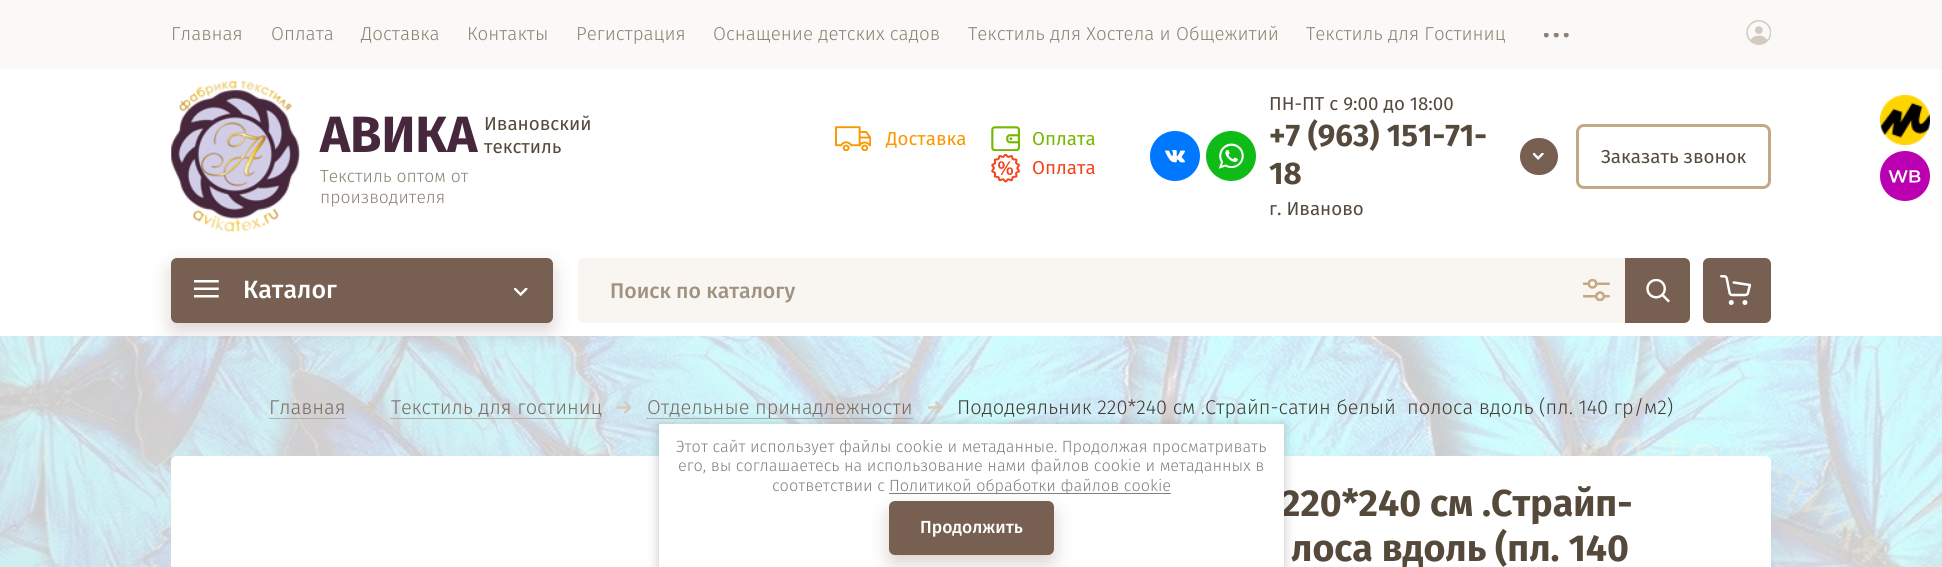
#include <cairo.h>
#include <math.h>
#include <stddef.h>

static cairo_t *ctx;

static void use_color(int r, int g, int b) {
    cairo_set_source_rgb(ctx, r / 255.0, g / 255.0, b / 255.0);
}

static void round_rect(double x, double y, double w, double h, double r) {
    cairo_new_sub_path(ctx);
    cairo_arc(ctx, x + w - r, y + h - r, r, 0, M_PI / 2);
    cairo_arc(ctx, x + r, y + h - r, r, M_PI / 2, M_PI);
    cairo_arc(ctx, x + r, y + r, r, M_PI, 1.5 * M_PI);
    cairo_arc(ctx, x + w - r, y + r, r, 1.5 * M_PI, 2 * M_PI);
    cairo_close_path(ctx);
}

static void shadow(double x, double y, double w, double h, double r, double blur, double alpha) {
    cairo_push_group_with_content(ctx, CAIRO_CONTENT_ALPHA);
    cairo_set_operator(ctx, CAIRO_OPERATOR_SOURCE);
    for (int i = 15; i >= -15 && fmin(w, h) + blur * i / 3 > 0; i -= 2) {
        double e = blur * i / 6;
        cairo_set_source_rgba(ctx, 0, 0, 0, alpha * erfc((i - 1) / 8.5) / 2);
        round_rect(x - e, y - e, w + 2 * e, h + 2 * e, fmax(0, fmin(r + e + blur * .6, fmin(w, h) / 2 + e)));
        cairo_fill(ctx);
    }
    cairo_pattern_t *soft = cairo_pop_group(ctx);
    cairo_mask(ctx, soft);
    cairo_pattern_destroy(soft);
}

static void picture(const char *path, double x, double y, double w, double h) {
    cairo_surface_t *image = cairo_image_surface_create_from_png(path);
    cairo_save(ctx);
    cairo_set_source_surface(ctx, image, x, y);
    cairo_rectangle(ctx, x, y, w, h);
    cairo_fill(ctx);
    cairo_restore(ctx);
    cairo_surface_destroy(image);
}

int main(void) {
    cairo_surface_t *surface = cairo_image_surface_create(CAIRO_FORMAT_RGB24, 1942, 567);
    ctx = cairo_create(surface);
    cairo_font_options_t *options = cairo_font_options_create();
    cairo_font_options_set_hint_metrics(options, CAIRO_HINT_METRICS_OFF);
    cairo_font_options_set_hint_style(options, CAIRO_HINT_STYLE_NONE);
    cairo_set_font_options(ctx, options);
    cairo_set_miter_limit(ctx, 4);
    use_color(255, 255, 255);
    cairo_paint(ctx);
    use_color(250, 249, 247);
    cairo_rectangle(ctx, 0, 0, 1942, 69);
    cairo_fill(ctx);
    cairo_select_font_face(ctx, "Fira Sans Light", CAIRO_FONT_SLANT_NORMAL, CAIRO_FONT_WEIGHT_NORMAL);
    cairo_set_font_size(ctx, 18.75);
    use_color(140, 129, 113);
    cairo_move_to(ctx, 171, 40);
    cairo_show_text(ctx, "Главная");
    cairo_move_to(ctx, 271, 40);
    cairo_show_text(ctx, "Оплата");
    cairo_move_to(ctx, 361, 40);
    cairo_show_text(ctx, "Доставка");
    cairo_move_to(ctx, 467, 40);
    cairo_show_text(ctx, "Контакты");
    cairo_move_to(ctx, 576, 40);
    cairo_show_text(ctx, "Регистрация");
    cairo_move_to(ctx, 713, 40);
    cairo_show_text(ctx, "Оснащение детских садов");
    cairo_move_to(ctx, 968, 40);
    cairo_show_text(ctx, "Текстиль для Хостела и Общежитий");
    cairo_move_to(ctx, 1306, 40);
    cairo_show_text(ctx, "Текстиль для Гостиниц");
    picture("img1.png", 1544, 33, 25, 5);
    picture("img2.png", 1746, 20, 25, 25);
    picture("img3.png", 171, 81, 129, 151);
    cairo_select_font_face(ctx, "Fira Sans", CAIRO_FONT_SLANT_NORMAL, CAIRO_FONT_WEIGHT_BOLD);
    cairo_set_font_size(ctx, 51);
    use_color(71, 39, 60);
    cairo_move_to(ctx, 320, 152);
    cairo_show_text(ctx, "АВИКА");
    cairo_select_font_face(ctx, "Fira Sans", CAIRO_FONT_SLANT_NORMAL, CAIRO_FONT_WEIGHT_NORMAL);
    cairo_set_font_size(ctx, 18.75);
    use_color(84, 73, 59);
    cairo_move_to(ctx, 484, 130);
    cairo_show_text(ctx, "Ивановский");
    cairo_move_to(ctx, 484, 153);
    cairo_show_text(ctx, "текстиль");
    cairo_select_font_face(ctx, "Fira Sans Light", CAIRO_FONT_SLANT_NORMAL, CAIRO_FONT_WEIGHT_NORMAL);
    cairo_set_font_size(ctx, 17.5);
    use_color(140, 129, 113);
    cairo_move_to(ctx, 320, 182);
    cairo_show_text(ctx, "Текстиль оптом от");
    cairo_move_to(ctx, 320, 203);
    cairo_show_text(ctx, "производителя");
    picture("img4.png", 835, 126, 36, 25);
    cairo_select_font_face(ctx, "Fira Sans", CAIRO_FONT_SLANT_NORMAL, CAIRO_FONT_WEIGHT_NORMAL);
    cairo_set_font_size(ctx, 18.75);
    use_color(250, 152, 0);
    cairo_move_to(ctx, 886, 145);
    cairo_show_text(ctx, "Доставка");
    picture("img5.png", 991, 126, 29, 25);
    use_color(117, 184, 0);
    cairo_move_to(ctx, 1032, 145);
    cairo_show_text(ctx, "Оплата");
    picture("img6.png", 991, 154, 29, 29);
    use_color(245, 67, 26);
    cairo_move_to(ctx, 1032, 174);
    cairo_show_text(ctx, "Оплата");
    picture("img7.png", 1150, 131, 50, 50);
    picture("img8.png", 1206, 131, 50, 50);
    use_color(84, 73, 59);
    cairo_move_to(ctx, 1269, 110);
    cairo_show_text(ctx, "ПН-ПТ с 9:00 до 18:00");
    cairo_select_font_face(ctx, "Fira Sans", CAIRO_FONT_SLANT_NORMAL, CAIRO_FONT_WEIGHT_BOLD);
    cairo_set_font_size(ctx, 31.25);
    cairo_move_to(ctx, 1269, 146);
    cairo_show_text(ctx, "+7 (963) 151-71-");
    cairo_move_to(ctx, 1269, 184);
    cairo_show_text(ctx, "18");
    cairo_select_font_face(ctx, "Fira Sans", CAIRO_FONT_SLANT_NORMAL, CAIRO_FONT_WEIGHT_NORMAL);
    cairo_set_font_size(ctx, 18.75);
    cairo_move_to(ctx, 1269, 215);
    cairo_show_text(ctx, "г. Иваново");
    use_color(119, 95, 81);
    round_rect(1520, 138, 38, 37, 18.5);
    cairo_fill(ctx);
    picture("img9.png", 1533, 153, 11, 7);
    round_rect(1577.5, 125.5, 192, 62, 6.5);
    use_color(195, 168, 132);
    cairo_set_line_width(ctx, 3);
    cairo_stroke(ctx);
    use_color(84, 73, 59);
    cairo_move_to(ctx, 1601, 163);
    cairo_show_text(ctx, "Заказать звонок");
    picture("img20.png", 0, 336, 1942, 231);
    use_color(119, 95, 81);
    shadow(171, 266, 382, 65, 6, 9.5, 0.27);
    use_color(119, 95, 81);
    round_rect(171, 258, 382, 65, 6);
    cairo_fill(ctx);
    picture("img10.png", 194, 280, 25, 18);
    cairo_select_font_face(ctx, "Fira Sans Medium", CAIRO_FONT_SLANT_NORMAL, CAIRO_FONT_WEIGHT_NORMAL);
    cairo_set_font_size(ctx, 25);
    use_color(255, 255, 255);
    cairo_move_to(ctx, 243, 298);
    cairo_show_text(ctx, "Каталог");
    picture("img11.png", 514, 288, 14, 8);
    use_color(249, 246, 242);
    round_rect(578, 258, 1112, 65, 6);
    cairo_fill(ctx);
    cairo_set_font_size(ctx, 21.25);
    use_color(159, 146, 128);
    cairo_move_to(ctx, 610, 298);
    cairo_show_text(ctx, "Поиск по каталогу");
    picture("img12.png", 1583, 279, 27, 22);
    use_color(119, 95, 81);
    cairo_new_path(ctx);
    cairo_move_to(ctx, 1625, 258);
    cairo_line_to(ctx, 1684, 258);
    cairo_curve_to(ctx, 1687.5, 258, 1690, 260.5, 1690, 264);
    cairo_line_to(ctx, 1690, 317);
    cairo_curve_to(ctx, 1690, 320.5, 1687.5, 323, 1684, 323);
    cairo_line_to(ctx, 1625, 323);
    cairo_close_path(ctx);
    cairo_fill(ctx);
    picture("img13.png", 1646, 279, 24, 24);
    round_rect(1703, 258, 68, 65, 6);
    cairo_fill(ctx);
    picture("img14.png", 1720, 275, 31, 30);
    use_color(181, 175, 166);
    cairo_rectangle(ctx, 269, 418, 77, 1);
    cairo_fill(ctx);
    cairo_select_font_face(ctx, "Fira Sans Light", CAIRO_FONT_SLANT_NORMAL, CAIRO_FONT_WEIGHT_NORMAL);
    cairo_set_font_size(ctx, 20);
    use_color(119, 109, 96);
    cairo_move_to(ctx, 269, 414);
    cairo_show_text(ctx, "Главная");
    picture("img15.png", 360, 401, 15, 13);
    use_color(181, 175, 166);
    cairo_rectangle(ctx, 390, 418, 211, 1);
    cairo_fill(ctx);
    use_color(119, 109, 96);
    cairo_move_to(ctx, 391, 414);
    cairo_show_text(ctx, "Текстиль для гостиниц");
    picture("img16.png", 616, 401, 15, 13);
    use_color(181, 175, 166);
    cairo_rectangle(ctx, 646, 418, 267, 1);
    cairo_fill(ctx);
    use_color(119, 109, 96);
    cairo_move_to(ctx, 647, 414);
    cairo_show_text(ctx, "Отдельные принадлежности");
    picture("img17.png", 928, 401, 15, 13);
    use_color(66, 58, 46);
    cairo_move_to(ctx, 957, 414);
    cairo_show_text(ctx, "Пододеяльник 220*240 см .Страйп-сатин белый  полоса вдоль (пл. 140 гр/м2)");
    use_color(0, 0, 0);
    shadow(984, 475, 787, 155, 6, 19, 0.07);
    use_color(255, 255, 255);
    round_rect(171, 456, 788, 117, 6);
    cairo_fill(ctx);
    round_rect(984, 456, 787, 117, 6);
    cairo_fill(ctx);
    cairo_select_font_face(ctx, "Fira Sans", CAIRO_FONT_SLANT_NORMAL, CAIRO_FONT_WEIGHT_BOLD);
    cairo_set_font_size(ctx, 37.5);
    use_color(84, 73, 59);
    cairo_move_to(ctx, 1281, 516);
    cairo_show_text(ctx, "220*240 см .Страйп-");
    cairo_move_to(ctx, 1291, 561);
    cairo_show_text(ctx, "лоса вдоль (пл. 140");
    picture("img18.png", 1880, 95, 50, 50);
    picture("img19.png", 1880, 151, 50, 50);
    use_color(0, 0, 0);
    shadow(659, 425, 625, 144, 0, 6, 0.23);
    use_color(255, 255, 255);
    cairo_rectangle(ctx, 659, 424, 625, 143);
    cairo_fill(ctx);
    cairo_select_font_face(ctx, "Fira Sans Light", CAIRO_FONT_SLANT_NORMAL, CAIRO_FONT_WEIGHT_NORMAL);
    cairo_set_font_size(ctx, 16.25);
    use_color(128, 128, 128);
    cairo_move_to(ctx, 676, 452);
    cairo_show_text(ctx, "Этот сайт использует файлы cookie и метаданные. Продолжая просматривать");
    cairo_move_to(ctx, 678, 471);
    cairo_show_text(ctx, "его, вы соглашаетесь на использование нами файлов cookie и метаданных в");
    cairo_move_to(ctx, 772, 491);
    cairo_show_text(ctx, "соответствии с");
    cairo_rectangle(ctx, 889, 493, 282, 1);
    cairo_fill(ctx);
    cairo_move_to(ctx, 889, 491);
    cairo_show_text(ctx, "Политикой обработки файлов cookie");
    use_color(119, 95, 81);
    shadow(889, 510, 165, 54, 6, 9.5, 0.27);
    use_color(119, 95, 81);
    round_rect(889, 501, 165, 54, 6);
    cairo_fill(ctx);
    cairo_select_font_face(ctx, "Fira Sans Medium", CAIRO_FONT_SLANT_NORMAL, CAIRO_FONT_WEIGHT_NORMAL);
    cairo_set_font_size(ctx, 17.5);
    use_color(255, 255, 255);
    cairo_move_to(ctx, 920, 533);
    cairo_show_text(ctx, "Продолжить");
    cairo_surface_write_to_png(surface, "result.png");
    cairo_font_options_destroy(options);
    cairo_destroy(ctx);
    cairo_surface_destroy(surface);
    return 0;
}
